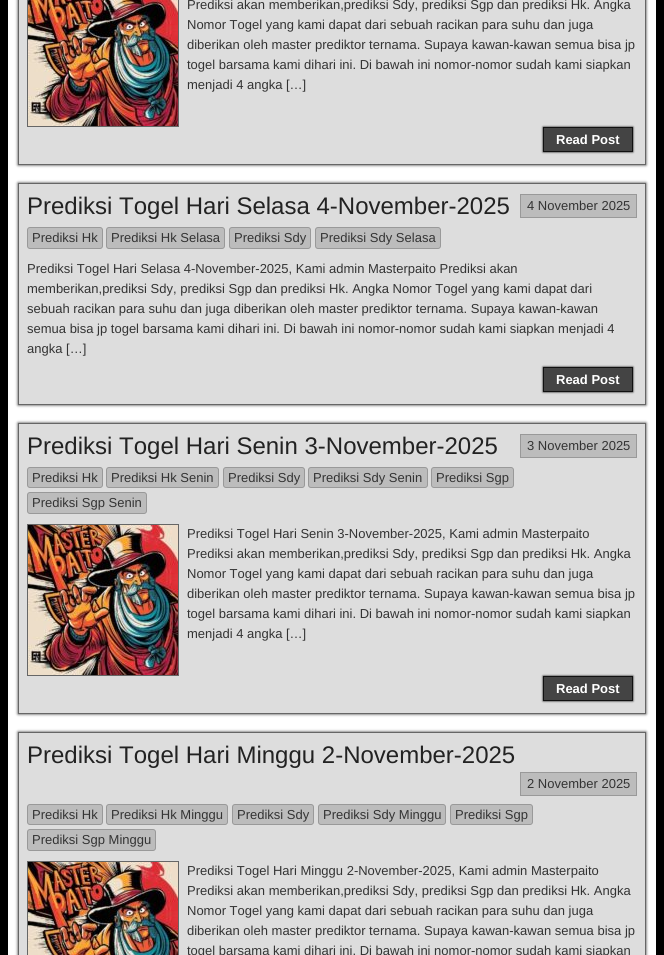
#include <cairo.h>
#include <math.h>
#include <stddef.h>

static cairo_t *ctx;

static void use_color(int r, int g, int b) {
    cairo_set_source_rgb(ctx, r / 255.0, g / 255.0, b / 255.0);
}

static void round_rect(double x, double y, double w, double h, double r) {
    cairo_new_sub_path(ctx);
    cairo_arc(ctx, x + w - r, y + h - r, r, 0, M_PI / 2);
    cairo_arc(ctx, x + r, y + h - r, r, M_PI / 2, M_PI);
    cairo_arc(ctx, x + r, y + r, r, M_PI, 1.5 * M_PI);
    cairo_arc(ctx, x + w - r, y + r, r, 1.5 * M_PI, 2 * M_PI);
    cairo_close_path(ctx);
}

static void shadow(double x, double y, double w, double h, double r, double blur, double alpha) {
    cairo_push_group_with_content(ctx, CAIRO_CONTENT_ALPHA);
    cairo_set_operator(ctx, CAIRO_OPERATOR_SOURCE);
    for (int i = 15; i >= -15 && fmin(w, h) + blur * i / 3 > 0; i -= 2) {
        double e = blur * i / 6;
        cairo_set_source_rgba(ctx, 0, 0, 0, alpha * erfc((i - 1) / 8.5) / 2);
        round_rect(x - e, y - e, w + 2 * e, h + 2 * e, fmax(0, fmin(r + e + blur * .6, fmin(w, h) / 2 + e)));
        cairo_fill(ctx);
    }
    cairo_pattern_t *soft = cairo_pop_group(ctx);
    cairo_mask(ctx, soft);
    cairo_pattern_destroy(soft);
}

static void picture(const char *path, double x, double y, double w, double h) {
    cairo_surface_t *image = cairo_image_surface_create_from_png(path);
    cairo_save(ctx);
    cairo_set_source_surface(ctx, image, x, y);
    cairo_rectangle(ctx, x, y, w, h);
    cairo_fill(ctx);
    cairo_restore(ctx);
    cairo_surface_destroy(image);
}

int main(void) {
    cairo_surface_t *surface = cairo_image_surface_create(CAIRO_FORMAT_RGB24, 664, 955);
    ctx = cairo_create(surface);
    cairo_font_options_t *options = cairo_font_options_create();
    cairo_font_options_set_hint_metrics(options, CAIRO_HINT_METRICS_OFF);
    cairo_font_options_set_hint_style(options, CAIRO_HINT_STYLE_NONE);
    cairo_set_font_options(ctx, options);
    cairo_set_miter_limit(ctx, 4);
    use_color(255, 255, 255);
    cairo_paint(ctx);
    cairo_rectangle(ctx, 4, -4, 656, 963);
    use_color(0, 0, 0);
    cairo_set_line_width(ctx, 8);
    cairo_stroke(ctx);
    use_color(51, 51, 51);
    shadow(18, -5, 628, 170, 0, 1.5, 1);
    use_color(221, 221, 221);
    cairo_rectangle(ctx, 18.5, -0.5, 627, 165);
    cairo_fill_preserve(ctx);
    use_color(102, 102, 102);
    cairo_set_line_width(ctx, 1);
    cairo_stroke(ctx);
    cairo_rectangle(ctx, 27.5, -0.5, 151, 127);
    cairo_stroke(ctx);
    picture("img1.png", 28, 0, 150, 126);
    cairo_select_font_face(ctx, "Liberation Sans", CAIRO_FONT_SLANT_NORMAL, CAIRO_FONT_WEIGHT_NORMAL);
    cairo_set_font_size(ctx, 13);
    use_color(51, 51, 51);
    cairo_move_to(ctx, 187, 9);
    cairo_show_text(ctx, "Prediksi akan memberikan,prediksi Sdy, prediksi Sgp dan prediksi Hk. Angka");
    cairo_move_to(ctx, 187, 29);
    cairo_show_text(ctx, "Nomor Togel yang kami dapat dari sebuah racikan para suhu dan juga");
    cairo_move_to(ctx, 187, 49);
    cairo_show_text(ctx, "diberikan oleh master prediktor ternama. Supaya kawan-kawan semua bisa jp");
    cairo_move_to(ctx, 187, 69);
    cairo_show_text(ctx, "togel barsama kami dihari ini. Di bawah ini nomor-nomor sudah kami siapkan");
    cairo_move_to(ctx, 187, 89);
    cairo_show_text(ctx, "menjadi 4 angka […]");
    use_color(0, 0, 0);
    shadow(543, 127, 90, 25, 0, 1, 1);
    use_color(68, 68, 68);
    cairo_rectangle(ctx, 543.5, 127.5, 89, 24);
    cairo_fill_preserve(ctx);
    use_color(17, 17, 17);
    cairo_stroke(ctx);
    cairo_select_font_face(ctx, "Liberation Sans", CAIRO_FONT_SLANT_NORMAL, CAIRO_FONT_WEIGHT_BOLD);
    use_color(255, 255, 255);
    cairo_move_to(ctx, 556, 144);
    cairo_show_text(ctx, "Read Post");
    use_color(51, 51, 51);
    shadow(18, 183, 628, 222, 0, 1.5, 1);
    use_color(221, 221, 221);
    cairo_rectangle(ctx, 18.5, 183.5, 627, 221);
    cairo_fill_preserve(ctx);
    use_color(102, 102, 102);
    cairo_stroke(ctx);
    cairo_select_font_face(ctx, "Liberation Sans", CAIRO_FONT_SLANT_NORMAL, CAIRO_FONT_WEIGHT_NORMAL);
    cairo_set_font_size(ctx, 24);
    use_color(34, 34, 34);
    cairo_move_to(ctx, 27, 214);
    cairo_show_text(ctx, "Prediksi Togel Hari Selasa 4-November-2025");
    use_color(188, 188, 188);
    cairo_rectangle(ctx, 520.5, 194.5, 116, 23);
    cairo_fill_preserve(ctx);
    use_color(153, 153, 153);
    cairo_stroke(ctx);
    cairo_set_font_size(ctx, 13);
    use_color(51, 51, 51);
    cairo_move_to(ctx, 527, 210);
    cairo_show_text(ctx, "4 November 2025");
    use_color(188, 188, 188);
    round_rect(27.5, 227.5, 75, 21, 2.5);
    cairo_fill_preserve(ctx);
    use_color(153, 153, 153);
    cairo_stroke(ctx);
    use_color(51, 51, 51);
    cairo_move_to(ctx, 32, 242);
    cairo_show_text(ctx, "Prediksi Hk");
    use_color(188, 188, 188);
    round_rect(106.5, 227.5, 118, 21, 2.5);
    cairo_fill_preserve(ctx);
    use_color(153, 153, 153);
    cairo_stroke(ctx);
    use_color(51, 51, 51);
    cairo_move_to(ctx, 111, 242);
    cairo_show_text(ctx, "Prediksi Hk Selasa");
    use_color(188, 188, 188);
    round_rect(229.5, 227.5, 81, 21, 2.5);
    cairo_fill_preserve(ctx);
    use_color(153, 153, 153);
    cairo_stroke(ctx);
    use_color(51, 51, 51);
    cairo_move_to(ctx, 234, 242);
    cairo_show_text(ctx, "Prediksi Sdy");
    use_color(188, 188, 188);
    round_rect(315.5, 227.5, 125, 21, 2.5);
    cairo_fill_preserve(ctx);
    use_color(153, 153, 153);
    cairo_stroke(ctx);
    use_color(51, 51, 51);
    cairo_move_to(ctx, 320, 242);
    cairo_show_text(ctx, "Prediksi Sdy Selasa");
    cairo_move_to(ctx, 27, 273);
    cairo_show_text(ctx, "Prediksi Togel Hari Selasa 4-November-2025, Kami admin Masterpaito Prediksi akan");
    cairo_move_to(ctx, 27, 293);
    cairo_show_text(ctx, "memberikan,prediksi Sdy, prediksi Sgp dan prediksi Hk. Angka Nomor Togel yang kami dapat dari");
    cairo_move_to(ctx, 27, 313);
    cairo_show_text(ctx, "sebuah racikan para suhu dan juga diberikan oleh master prediktor ternama. Supaya kawan-kawan");
    cairo_move_to(ctx, 27, 333);
    cairo_show_text(ctx, "semua bisa jp togel barsama kami dihari ini. Di bawah ini nomor-nomor sudah kami siapkan menjadi 4");
    cairo_move_to(ctx, 27, 353);
    cairo_show_text(ctx, "angka […]");
    use_color(0, 0, 0);
    shadow(543, 367, 90, 25, 0, 1, 1);
    use_color(68, 68, 68);
    cairo_rectangle(ctx, 543.5, 367.5, 89, 24);
    cairo_fill_preserve(ctx);
    use_color(17, 17, 17);
    cairo_stroke(ctx);
    cairo_select_font_face(ctx, "Liberation Sans", CAIRO_FONT_SLANT_NORMAL, CAIRO_FONT_WEIGHT_BOLD);
    use_color(255, 255, 255);
    cairo_move_to(ctx, 556, 384);
    cairo_show_text(ctx, "Read Post");
    use_color(51, 51, 51);
    shadow(18, 423, 628, 291, 0, 1.5, 1);
    use_color(221, 221, 221);
    cairo_rectangle(ctx, 18.5, 423.5, 627, 290);
    cairo_fill_preserve(ctx);
    use_color(102, 102, 102);
    cairo_stroke(ctx);
    cairo_select_font_face(ctx, "Liberation Sans", CAIRO_FONT_SLANT_NORMAL, CAIRO_FONT_WEIGHT_NORMAL);
    cairo_set_font_size(ctx, 24);
    use_color(34, 34, 34);
    cairo_move_to(ctx, 27, 454);
    cairo_show_text(ctx, "Prediksi Togel Hari Senin 3-November-2025");
    use_color(188, 188, 188);
    cairo_rectangle(ctx, 520.5, 434.5, 116, 23);
    cairo_fill_preserve(ctx);
    use_color(153, 153, 153);
    cairo_stroke(ctx);
    cairo_set_font_size(ctx, 13);
    use_color(51, 51, 51);
    cairo_move_to(ctx, 527, 450);
    cairo_show_text(ctx, "3 November 2025");
    use_color(188, 188, 188);
    round_rect(27.5, 467.5, 75, 20, 2.5);
    cairo_fill_preserve(ctx);
    use_color(153, 153, 153);
    cairo_stroke(ctx);
    use_color(51, 51, 51);
    cairo_move_to(ctx, 32, 482);
    cairo_show_text(ctx, "Prediksi Hk");
    use_color(188, 188, 188);
    round_rect(106.5, 467.5, 112, 20, 2.5);
    cairo_fill_preserve(ctx);
    use_color(153, 153, 153);
    cairo_stroke(ctx);
    use_color(51, 51, 51);
    cairo_move_to(ctx, 111, 482);
    cairo_show_text(ctx, "Prediksi Hk Senin");
    use_color(188, 188, 188);
    round_rect(223.5, 467.5, 81, 20, 2.5);
    cairo_fill_preserve(ctx);
    use_color(153, 153, 153);
    cairo_stroke(ctx);
    use_color(51, 51, 51);
    cairo_move_to(ctx, 228, 482);
    cairo_show_text(ctx, "Prediksi Sdy");
    use_color(188, 188, 188);
    round_rect(308.5, 467.5, 119, 20, 2.5);
    cairo_fill_preserve(ctx);
    use_color(153, 153, 153);
    cairo_stroke(ctx);
    use_color(51, 51, 51);
    cairo_move_to(ctx, 313, 482);
    cairo_show_text(ctx, "Prediksi Sdy Senin");
    use_color(188, 188, 188);
    round_rect(431.5, 467.5, 82, 20, 2.5);
    cairo_fill_preserve(ctx);
    use_color(153, 153, 153);
    cairo_stroke(ctx);
    use_color(51, 51, 51);
    cairo_move_to(ctx, 436, 482);
    cairo_show_text(ctx, "Prediksi Sgp");
    use_color(188, 188, 188);
    round_rect(27.5, 492.5, 119, 21, 2.5);
    cairo_fill_preserve(ctx);
    use_color(153, 153, 153);
    cairo_stroke(ctx);
    use_color(51, 51, 51);
    cairo_move_to(ctx, 32, 507);
    cairo_show_text(ctx, "Prediksi Sgp Senin");
    cairo_rectangle(ctx, 27.5, 524.5, 151, 151);
    use_color(102, 102, 102);
    cairo_stroke(ctx);
    picture("img2.png", 28, 525, 150, 150);
    use_color(51, 51, 51);
    cairo_move_to(ctx, 187, 538);
    cairo_show_text(ctx, "Prediksi Togel Hari Senin 3-November-2025, Kami admin Masterpaito");
    cairo_move_to(ctx, 187, 558);
    cairo_show_text(ctx, "Prediksi akan memberikan,prediksi Sdy, prediksi Sgp dan prediksi Hk. Angka");
    cairo_move_to(ctx, 187, 578);
    cairo_show_text(ctx, "Nomor Togel yang kami dapat dari sebuah racikan para suhu dan juga");
    cairo_move_to(ctx, 187, 598);
    cairo_show_text(ctx, "diberikan oleh master prediktor ternama. Supaya kawan-kawan semua bisa jp");
    cairo_move_to(ctx, 187, 618);
    cairo_show_text(ctx, "togel barsama kami dihari ini. Di bawah ini nomor-nomor sudah kami siapkan");
    cairo_move_to(ctx, 187, 638);
    cairo_show_text(ctx, "menjadi 4 angka […]");
    use_color(0, 0, 0);
    shadow(543, 676, 90, 25, 0, 1, 1);
    use_color(68, 68, 68);
    cairo_rectangle(ctx, 543.5, 676.5, 89, 24);
    cairo_fill_preserve(ctx);
    use_color(17, 17, 17);
    cairo_stroke(ctx);
    cairo_select_font_face(ctx, "Liberation Sans", CAIRO_FONT_SLANT_NORMAL, CAIRO_FONT_WEIGHT_BOLD);
    use_color(255, 255, 255);
    cairo_move_to(ctx, 556, 693);
    cairo_show_text(ctx, "Read Post");
    use_color(51, 51, 51);
    shadow(18, 732, 628, 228, 0, 1.5, 1);
    use_color(221, 221, 221);
    cairo_rectangle(ctx, 18.5, 732.5, 627, 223);
    cairo_fill_preserve(ctx);
    use_color(102, 102, 102);
    cairo_stroke(ctx);
    cairo_select_font_face(ctx, "Liberation Sans", CAIRO_FONT_SLANT_NORMAL, CAIRO_FONT_WEIGHT_NORMAL);
    cairo_set_font_size(ctx, 24);
    use_color(34, 34, 34);
    cairo_move_to(ctx, 27, 763);
    cairo_show_text(ctx, "Prediksi Togel Hari Minggu 2-November-2025");
    use_color(188, 188, 188);
    cairo_rectangle(ctx, 520.5, 772.5, 116, 23);
    cairo_fill_preserve(ctx);
    use_color(153, 153, 153);
    cairo_stroke(ctx);
    cairo_set_font_size(ctx, 13);
    use_color(51, 51, 51);
    cairo_move_to(ctx, 527, 788);
    cairo_show_text(ctx, "2 November 2025");
    use_color(188, 188, 188);
    round_rect(27.5, 804.5, 75, 20, 2.5);
    cairo_fill_preserve(ctx);
    use_color(153, 153, 153);
    cairo_stroke(ctx);
    use_color(51, 51, 51);
    cairo_move_to(ctx, 32, 819);
    cairo_show_text(ctx, "Prediksi Hk");
    use_color(188, 188, 188);
    round_rect(106.5, 804.5, 121, 20, 2.5);
    cairo_fill_preserve(ctx);
    use_color(153, 153, 153);
    cairo_stroke(ctx);
    use_color(51, 51, 51);
    cairo_move_to(ctx, 111, 819);
    cairo_show_text(ctx, "Prediksi Hk Minggu");
    use_color(188, 188, 188);
    round_rect(232.5, 804.5, 81, 20, 2.5);
    cairo_fill_preserve(ctx);
    use_color(153, 153, 153);
    cairo_stroke(ctx);
    use_color(51, 51, 51);
    cairo_move_to(ctx, 237, 819);
    cairo_show_text(ctx, "Prediksi Sdy");
    use_color(188, 188, 188);
    round_rect(318.5, 804.5, 127, 20, 2.5);
    cairo_fill_preserve(ctx);
    use_color(153, 153, 153);
    cairo_stroke(ctx);
    use_color(51, 51, 51);
    cairo_move_to(ctx, 323, 819);
    cairo_show_text(ctx, "Prediksi Sdy Minggu");
    use_color(188, 188, 188);
    round_rect(450.5, 804.5, 82, 20, 2.5);
    cairo_fill_preserve(ctx);
    use_color(153, 153, 153);
    cairo_stroke(ctx);
    use_color(51, 51, 51);
    cairo_move_to(ctx, 455, 819);
    cairo_show_text(ctx, "Prediksi Sgp");
    use_color(188, 188, 188);
    round_rect(27.5, 829.5, 128, 21, 2.5);
    cairo_fill_preserve(ctx);
    use_color(153, 153, 153);
    cairo_stroke(ctx);
    use_color(51, 51, 51);
    cairo_move_to(ctx, 32, 844);
    cairo_show_text(ctx, "Prediksi Sgp Minggu");
    cairo_rectangle(ctx, 27.5, 861.5, 151, 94);
    use_color(102, 102, 102);
    cairo_stroke(ctx);
    picture("img3.png", 28, 862, 150, 93);
    use_color(51, 51, 51);
    cairo_move_to(ctx, 187, 875);
    cairo_show_text(ctx, "Prediksi Togel Hari Minggu 2-November-2025, Kami admin Masterpaito");
    cairo_move_to(ctx, 187, 895);
    cairo_show_text(ctx, "Prediksi akan memberikan,prediksi Sdy, prediksi Sgp dan prediksi Hk. Angka");
    cairo_move_to(ctx, 187, 915);
    cairo_show_text(ctx, "Nomor Togel yang kami dapat dari sebuah racikan para suhu dan juga");
    cairo_move_to(ctx, 187, 935);
    cairo_show_text(ctx, "diberikan oleh master prediktor ternama. Supaya kawan-kawan semua bisa jp");
    cairo_move_to(ctx, 187, 955);
    cairo_show_text(ctx, "togel barsama kami dihari ini. Di bawah ini nomor-nomor sudah kami siapkan");
    cairo_surface_write_to_png(surface, "result.png");
    cairo_font_options_destroy(options);
    cairo_destroy(ctx);
    cairo_surface_destroy(surface);
    return 0;
}
